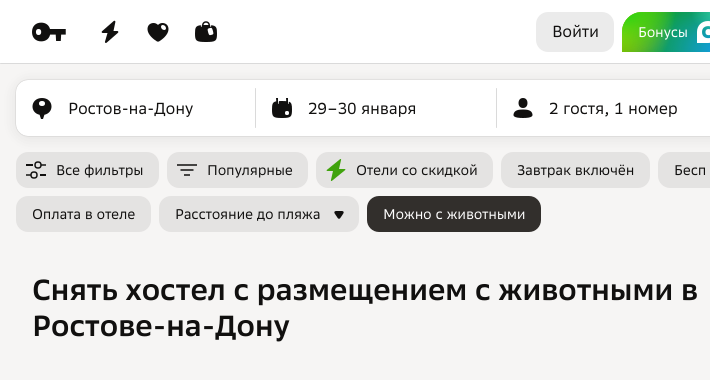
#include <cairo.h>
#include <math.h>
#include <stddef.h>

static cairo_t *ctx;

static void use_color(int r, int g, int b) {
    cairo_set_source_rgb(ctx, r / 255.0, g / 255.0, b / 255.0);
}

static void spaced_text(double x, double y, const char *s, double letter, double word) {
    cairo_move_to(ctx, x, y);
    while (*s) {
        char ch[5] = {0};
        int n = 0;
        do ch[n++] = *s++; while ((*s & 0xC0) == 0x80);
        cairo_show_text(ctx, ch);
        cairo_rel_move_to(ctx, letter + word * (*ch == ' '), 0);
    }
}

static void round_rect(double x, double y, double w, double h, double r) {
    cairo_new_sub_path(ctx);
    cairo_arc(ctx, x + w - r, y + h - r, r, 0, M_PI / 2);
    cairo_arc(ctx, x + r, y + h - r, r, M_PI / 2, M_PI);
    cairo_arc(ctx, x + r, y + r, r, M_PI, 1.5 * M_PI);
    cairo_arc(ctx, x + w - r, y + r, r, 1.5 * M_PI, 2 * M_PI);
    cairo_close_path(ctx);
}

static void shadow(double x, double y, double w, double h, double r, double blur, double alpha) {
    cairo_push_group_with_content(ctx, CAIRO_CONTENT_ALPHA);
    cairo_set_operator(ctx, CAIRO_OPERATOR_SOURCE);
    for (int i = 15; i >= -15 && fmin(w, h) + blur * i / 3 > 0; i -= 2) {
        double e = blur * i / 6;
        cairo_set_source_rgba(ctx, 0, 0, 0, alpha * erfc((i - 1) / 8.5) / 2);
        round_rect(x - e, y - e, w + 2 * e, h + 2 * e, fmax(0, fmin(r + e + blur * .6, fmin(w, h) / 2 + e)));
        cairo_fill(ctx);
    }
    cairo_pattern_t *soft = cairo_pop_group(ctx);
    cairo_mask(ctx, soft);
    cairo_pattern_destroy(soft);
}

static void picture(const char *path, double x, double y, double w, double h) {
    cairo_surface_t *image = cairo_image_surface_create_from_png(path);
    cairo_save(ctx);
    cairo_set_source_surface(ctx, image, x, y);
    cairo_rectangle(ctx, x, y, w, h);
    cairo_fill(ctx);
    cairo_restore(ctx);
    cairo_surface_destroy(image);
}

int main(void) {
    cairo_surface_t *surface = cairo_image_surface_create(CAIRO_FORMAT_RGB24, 710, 380);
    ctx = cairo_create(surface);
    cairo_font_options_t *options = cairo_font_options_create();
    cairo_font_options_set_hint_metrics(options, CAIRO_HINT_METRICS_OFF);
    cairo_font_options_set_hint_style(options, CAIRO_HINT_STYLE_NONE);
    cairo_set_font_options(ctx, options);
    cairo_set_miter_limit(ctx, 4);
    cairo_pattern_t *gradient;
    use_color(246, 245, 244);
    cairo_paint(ctx);
    use_color(228, 227, 226);
    round_rect(167, 152, 141, 36, 12);
    cairo_fill(ctx);
    round_rect(316, 152, 177, 36, 12);
    cairo_fill(ctx);
    round_rect(501, 152, 149, 36, 12);
    cairo_fill(ctx);
    cairo_new_path(ctx);
    cairo_move_to(ctx, 670, 152);
    cairo_line_to(ctx, 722, 152);
    cairo_line_to(ctx, 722, 188);
    cairo_line_to(ctx, 670, 188);
    cairo_curve_to(ctx, 663.5, 188, 658, 182.5, 658, 176);
    cairo_line_to(ctx, 658, 164);
    cairo_curve_to(ctx, 658, 157.5, 663.5, 152, 670, 152);
    cairo_close_path(ctx);
    cairo_fill(ctx);
    use_color(0, 0, 0);
    shadow(16, 82, 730, 56, 12, 8, 0.08);
    use_color(255, 255, 255);
    cairo_rectangle(ctx, 0, 0, 710, 64);
    cairo_fill(ctx);
    use_color(218, 218, 218);
    round_rect(0, 63, 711, 1, 0.5);
    cairo_fill(ctx);
    picture("img1.png", 32, 22, 34, 20);
    picture("img2.png", 101, 20, 18, 23);
    picture("img3.png", 147, 23, 22, 19);
    picture("img4.png", 195, 21, 22, 21);
    use_color(235, 235, 235);
    round_rect(536, 12, 78, 40, 12);
    cairo_fill(ctx);
    cairo_select_font_face(ctx, "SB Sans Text", CAIRO_FONT_SLANT_NORMAL, CAIRO_FONT_WEIGHT_NORMAL);
    cairo_set_font_size(ctx, 16);
    use_color(17, 16, 15);
    spaced_text(552, 37, "Войти", -0.25, 0);
    use_color(12, 156, 12);
    cairo_new_path(ctx);
    cairo_move_to(ctx, 642, 12);
    cairo_line_to(ctx, 708, 12);
    cairo_curve_to(ctx, 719, 12, 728, 21, 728, 32);
    cairo_curve_to(ctx, 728, 43, 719, 52, 708, 52);
    cairo_line_to(ctx, 622, 52);
    cairo_line_to(ctx, 622, 32);
    cairo_curve_to(ctx, 622, 21, 631, 12, 642, 12);
    cairo_close_path(ctx);
    cairo_fill(ctx);
    gradient = cairo_pattern_create_radial(0, 0, 0, 0, 0, 1);
    cairo_pattern_set_matrix(gradient, &(cairo_matrix_t){1.0 / 104, 0, 0, 1.0 / 74, -1.0 * 728 / 104, -1.0 * 52 / 74});
    cairo_pattern_add_color_stop_rgba(gradient, 0, 0.071, 0.616, 0.98, 1);
    cairo_pattern_add_color_stop_rgba(gradient, 1, 0.071, 0.616, 0.98, 0);
    cairo_set_source(ctx, gradient);
    cairo_pattern_destroy(gradient);
    cairo_rectangle(ctx, 626, 12, 84, 40);
    cairo_fill(ctx);
    gradient = cairo_pattern_create_radial(0, 0, 0, 0, 0, 1);
    cairo_pattern_set_matrix(gradient, &(cairo_matrix_t){1.0 / 41, 0, 0, 1.0 / 27, -1.0 * 732 / 41, -1.0 * 12 / 27});
    cairo_pattern_add_color_stop_rgba(gradient, 0, 0.259, 0.89, 0.706, 1);
    cairo_pattern_add_color_stop_rgba(gradient, 1, 0.259, 0.89, 0.706, 0);
    cairo_set_source(ctx, gradient);
    cairo_pattern_destroy(gradient);
    cairo_rectangle(ctx, 692, 12, 18, 20);
    cairo_fill(ctx);
    gradient = cairo_pattern_create_radial(0, 0, 0, 0, 0, 1);
    cairo_pattern_set_matrix(gradient, &(cairo_matrix_t){1.0 / 58, 0, 0, 1.0 / 71, -1.0 * 617 / 58, -1.0 * 12 / 71});
    cairo_pattern_add_color_stop_rgba(gradient, 0, 0.98, 0.929, 0.02, 1);
    cairo_pattern_add_color_stop_rgba(gradient, 1, 0.98, 0.929, 0.02, 0);
    cairo_set_source(ctx, gradient);
    cairo_pattern_destroy(gradient);
    cairo_new_path(ctx);
    cairo_move_to(ctx, 642, 12);
    cairo_line_to(ctx, 708, 12);
    cairo_curve_to(ctx, 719, 12, 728, 21, 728, 32);
    cairo_curve_to(ctx, 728, 43, 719, 52, 708, 52);
    cairo_line_to(ctx, 622, 52);
    cairo_line_to(ctx, 622, 32);
    cairo_curve_to(ctx, 622, 21, 631, 12, 642, 12);
    cairo_close_path(ctx);
    cairo_fill(ctx);
    gradient = cairo_pattern_create_radial(0, 0, 0, 0, 0, 1);
    cairo_pattern_set_matrix(gradient, &(cairo_matrix_t){1.0 / 57, 0, 0, 1.0 / 40, -1.0 * 622 / 57, -1.0 * 12 / 40});
    cairo_pattern_add_color_stop_rgba(gradient, 0, 0.082, 0.816, 0.082, 1);
    cairo_pattern_add_color_stop_rgba(gradient, 1, 0.082, 0.816, 0.082, 0);
    cairo_set_source(ctx, gradient);
    cairo_pattern_destroy(gradient);
    cairo_new_path(ctx);
    cairo_move_to(ctx, 642, 12);
    cairo_line_to(ctx, 708, 12);
    cairo_curve_to(ctx, 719, 12, 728, 21, 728, 32);
    cairo_curve_to(ctx, 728, 43, 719, 52, 708, 52);
    cairo_line_to(ctx, 622, 52);
    cairo_line_to(ctx, 622, 32);
    cairo_curve_to(ctx, 622, 21, 631, 12, 642, 12);
    cairo_close_path(ctx);
    cairo_fill(ctx);
    cairo_set_font_size(ctx, 14);
    use_color(255, 255, 255);
    spaced_text(638, 37, "Бонусы", -0.25, 0);
    picture("img5.png", 697, 21, 13, 22);
    use_color(0, 0, 0);
    shadow(16, 80, 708, 56, 12, 0.5, 0.24);
    use_color(255, 255, 255);
    cairo_new_path(ctx);
    cairo_move_to(ctx, 28, 80);
    cairo_line_to(ctx, 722, 80);
    cairo_line_to(ctx, 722, 136);
    cairo_line_to(ctx, 28, 136);
    cairo_curve_to(ctx, 21.5, 136, 16, 130.5, 16, 124);
    cairo_line_to(ctx, 16, 92);
    cairo_curve_to(ctx, 16, 85.5, 21.5, 80, 28, 80);
    cairo_close_path(ctx);
    cairo_fill(ctx);
    picture("img6.png", 32, 98, 20, 21);
    cairo_set_font_size(ctx, 16);
    use_color(17, 16, 15);
    spaced_text(68, 114, "Ростов-на-Дону", -0.25, 0);
    use_color(218, 218, 218);
    round_rect(255, 88, 1, 40, 0.5);
    cairo_fill(ctx);
    picture("img7.png", 272, 98, 20, 20);
    use_color(17, 16, 15);
    spaced_text(308, 114, "29–30 января", -0.25, 0);
    use_color(218, 218, 218);
    round_rect(496, 88, 1, 40, 0.5);
    cairo_fill(ctx);
    picture("img8.png", 513, 98, 20, 20);
    use_color(17, 16, 15);
    spaced_text(549, 114, "2 гостя, 1 номер", -0.25, 0);
    use_color(228, 227, 226);
    round_rect(16, 152, 143, 36, 12);
    cairo_fill(ctx);
    picture("img9.png", 26, 161, 20, 18);
    cairo_set_font_size(ctx, 14);
    use_color(17, 16, 15);
    spaced_text(56, 175, "Все фильтры", -0.25, 0);
    picture("img10.png", 177, 164, 20, 12);
    spaced_text(207, 175, "Популярные", -0.25, 0);
    picture("img11.png", 326, 159, 20, 22);
    spaced_text(356, 175, "Отели со скидкой", -0.25, 0);
    spaced_text(517, 175, "Завтрак включён", -0.25, 0);
    spaced_text(674, 175, "Бесп", -0.25, 0);
    use_color(228, 227, 226);
    round_rect(16, 196, 135, 36, 12);
    cairo_fill(ctx);
    use_color(17, 16, 15);
    spaced_text(32, 219, "Оплата в отеле", -0.25, 0);
    use_color(228, 227, 226);
    round_rect(159, 196, 200, 36, 12);
    cairo_fill(ctx);
    use_color(17, 16, 15);
    spaced_text(175, 219, "Расстояние до пляжа", -0.25, 0);
    picture("img12.png", 334, 211, 10, 8);
    use_color(50, 47, 44);
    round_rect(367, 196, 174, 36, 12);
    cairo_fill(ctx);
    use_color(255, 255, 255);
    spaced_text(383, 219, "Можно с животными", -0.25, 0);
    cairo_select_font_face(ctx, "SB Sans Text SemiBold", CAIRO_FONT_SLANT_NORMAL, CAIRO_FONT_WEIGHT_NORMAL);
    cairo_set_font_size(ctx, 29);
    use_color(17, 16, 15);
    spaced_text(32, 300, "Снять хостел с размещением с животными в", -0.45, 0);
    spaced_text(32, 336, "Ростове-на-Дону", -0.45, 0);
    cairo_surface_write_to_png(surface, "result.png");
    cairo_font_options_destroy(options);
    cairo_destroy(ctx);
    cairo_surface_destroy(surface);
    return 0;
}
